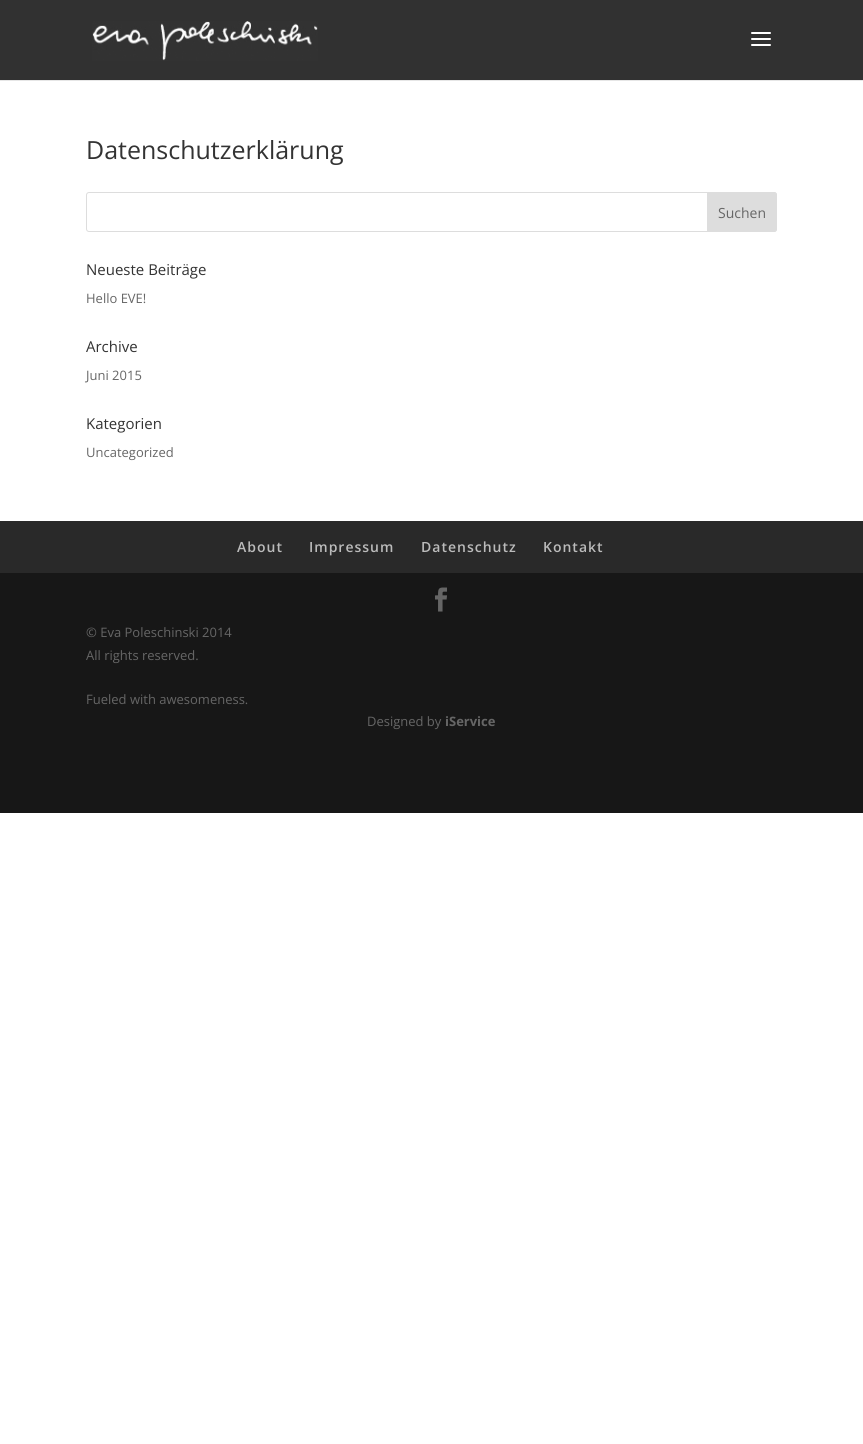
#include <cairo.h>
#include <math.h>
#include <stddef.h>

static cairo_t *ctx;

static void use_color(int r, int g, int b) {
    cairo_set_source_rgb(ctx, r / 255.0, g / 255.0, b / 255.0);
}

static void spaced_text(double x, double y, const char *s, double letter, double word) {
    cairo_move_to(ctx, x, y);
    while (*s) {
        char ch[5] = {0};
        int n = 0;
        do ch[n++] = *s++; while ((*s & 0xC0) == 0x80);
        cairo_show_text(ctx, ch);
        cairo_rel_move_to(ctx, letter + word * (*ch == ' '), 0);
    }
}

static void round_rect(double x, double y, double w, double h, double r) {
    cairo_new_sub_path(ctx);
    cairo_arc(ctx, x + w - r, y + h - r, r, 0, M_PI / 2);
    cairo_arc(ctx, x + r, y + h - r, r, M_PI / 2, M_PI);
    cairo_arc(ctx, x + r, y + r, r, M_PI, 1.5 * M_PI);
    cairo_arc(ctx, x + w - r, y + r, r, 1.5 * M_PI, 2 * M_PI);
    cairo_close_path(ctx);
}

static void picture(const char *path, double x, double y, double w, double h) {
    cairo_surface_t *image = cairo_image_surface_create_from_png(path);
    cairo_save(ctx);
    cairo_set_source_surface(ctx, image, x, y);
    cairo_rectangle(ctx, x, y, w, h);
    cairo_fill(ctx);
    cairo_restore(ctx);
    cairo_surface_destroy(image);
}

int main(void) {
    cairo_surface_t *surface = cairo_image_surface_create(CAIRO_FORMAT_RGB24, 863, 1444);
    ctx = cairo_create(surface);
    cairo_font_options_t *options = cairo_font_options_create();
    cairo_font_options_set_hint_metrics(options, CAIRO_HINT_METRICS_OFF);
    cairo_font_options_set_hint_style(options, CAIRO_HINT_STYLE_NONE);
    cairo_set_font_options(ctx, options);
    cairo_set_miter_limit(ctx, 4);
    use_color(255, 255, 255);
    cairo_paint(ctx);
    use_color(230, 230, 230);
    cairo_rectangle(ctx, 0, 80, 863, 1);
    cairo_fill(ctx);
    use_color(49, 49, 49);
    cairo_rectangle(ctx, 0, 0, 863, 80);
    cairo_fill(ctx);
    picture("img1.png", 92, 21, 226, 40);
    picture("img2.png", 751, 32, 20, 14);
    cairo_select_font_face(ctx, "Open Sans", CAIRO_FONT_SLANT_NORMAL, CAIRO_FONT_WEIGHT_NORMAL);
    cairo_set_font_size(ctx, 25);
    use_color(51, 51, 51);
    cairo_move_to(ctx, 86, 159);
    cairo_show_text(ctx, "Datenschutzerklärung");
    round_rect(86.5, 192.5, 690, 39, 2.5);
    use_color(221, 221, 221);
    cairo_set_line_width(ctx, 1);
    cairo_stroke(ctx);
    cairo_new_path(ctx);
    cairo_move_to(ctx, 707.5, 192.5);
    cairo_line_to(ctx, 774, 192.5);
    cairo_curve_to(ctx, 775.5, 192.5, 776.5, 193.5, 776.5, 195);
    cairo_line_to(ctx, 776.5, 229);
    cairo_curve_to(ctx, 776.5, 230.5, 775.5, 231.5, 774, 231.5);
    cairo_line_to(ctx, 707.5, 231.5);
    cairo_close_path(ctx);
    cairo_fill_preserve(ctx);
    cairo_stroke(ctx);
    cairo_set_font_size(ctx, 14);
    use_color(102, 102, 102);
    cairo_move_to(ctx, 718, 218);
    cairo_show_text(ctx, "Suchen");
    cairo_set_font_size(ctx, 15);
    use_color(51, 51, 51);
    cairo_move_to(ctx, 86, 275);
    cairo_show_text(ctx, "Neueste Beiträge");
    cairo_set_font_size(ctx, 13);
    use_color(102, 102, 102);
    cairo_move_to(ctx, 86, 303);
    cairo_show_text(ctx, "Hello EVE!");
    cairo_set_font_size(ctx, 15);
    use_color(51, 51, 51);
    cairo_move_to(ctx, 86, 352);
    cairo_show_text(ctx, "Archive");
    cairo_set_font_size(ctx, 13);
    use_color(102, 102, 102);
    cairo_move_to(ctx, 86, 380);
    cairo_show_text(ctx, "Juni 2015");
    cairo_set_font_size(ctx, 15);
    use_color(51, 51, 51);
    cairo_move_to(ctx, 86, 429);
    cairo_show_text(ctx, "Kategorien");
    cairo_set_font_size(ctx, 13);
    use_color(102, 102, 102);
    cairo_move_to(ctx, 86, 457);
    cairo_show_text(ctx, "Uncategorized");
    use_color(41, 41, 41);
    cairo_rectangle(ctx, 0, 521, 863, 52);
    cairo_fill(ctx);
    cairo_select_font_face(ctx, "Open Sans SemiBold", CAIRO_FONT_SLANT_NORMAL, CAIRO_FONT_WEIGHT_NORMAL);
    cairo_set_font_size(ctx, 14);
    use_color(187, 187, 187);
    spaced_text(237, 552, "About", 1, 0);
    spaced_text(309, 552, "Impressum", 1, 0);
    spaced_text(421, 552, "Datenschutz", 1, 0);
    spaced_text(543, 552, "Kontakt", 1, 0);
    use_color(23, 23, 23);
    cairo_rectangle(ctx, 0, 573, 863, 240);
    cairo_fill(ctx);
    picture("img3.png", 435, 587, 12, 25);
    cairo_select_font_face(ctx, "Open Sans", CAIRO_FONT_SLANT_NORMAL, CAIRO_FONT_WEIGHT_NORMAL);
    cairo_set_font_size(ctx, 13);
    use_color(102, 102, 102);
    cairo_move_to(ctx, 86, 637);
    cairo_show_text(ctx, "© Eva Poleschinski 2014");
    cairo_move_to(ctx, 86, 660);
    cairo_show_text(ctx, "All rights reserved.");
    cairo_move_to(ctx, 86, 704);
    cairo_show_text(ctx, "Fueled with awesomeness.");
    cairo_move_to(ctx, 367, 726);
    cairo_show_text(ctx, "Designed by");
    cairo_select_font_face(ctx, "Open Sans", CAIRO_FONT_SLANT_NORMAL, CAIRO_FONT_WEIGHT_BOLD);
    cairo_move_to(ctx, 445, 726);
    cairo_show_text(ctx, "iService");
    cairo_surface_write_to_png(surface, "result.png");
    cairo_font_options_destroy(options);
    cairo_destroy(ctx);
    cairo_surface_destroy(surface);
    return 0;
}
